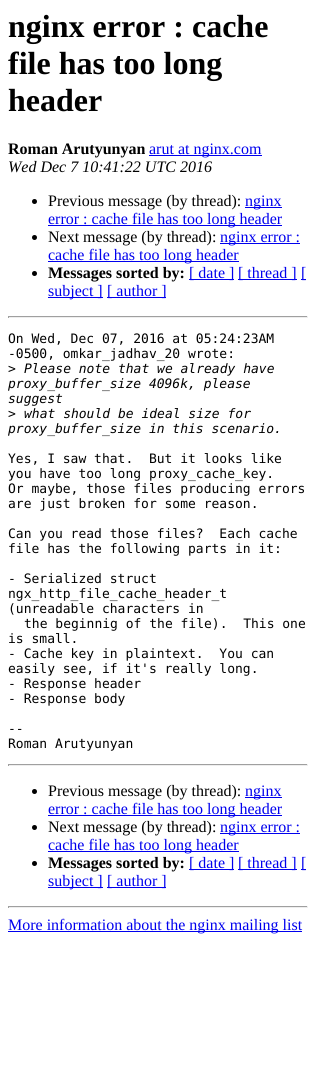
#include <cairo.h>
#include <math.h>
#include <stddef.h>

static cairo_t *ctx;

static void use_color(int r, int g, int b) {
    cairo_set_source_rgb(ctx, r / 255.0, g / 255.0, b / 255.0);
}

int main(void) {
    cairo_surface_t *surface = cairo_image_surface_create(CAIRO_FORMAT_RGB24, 316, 1088);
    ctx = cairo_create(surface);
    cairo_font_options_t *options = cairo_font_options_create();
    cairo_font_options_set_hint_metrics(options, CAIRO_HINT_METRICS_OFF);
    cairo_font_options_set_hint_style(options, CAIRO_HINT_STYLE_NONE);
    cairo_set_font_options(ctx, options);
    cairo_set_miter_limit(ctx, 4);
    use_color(255, 255, 255);
    cairo_paint(ctx);
    cairo_select_font_face(ctx, "Liberation Serif", CAIRO_FONT_SLANT_NORMAL, CAIRO_FONT_WEIGHT_BOLD);
    cairo_set_font_size(ctx, 32);
    use_color(0, 0, 0);
    cairo_move_to(ctx, 8, 37);
    cairo_show_text(ctx, "nginx error : cache");
    cairo_move_to(ctx, 8, 74);
    cairo_show_text(ctx, "file has too long");
    cairo_move_to(ctx, 8, 111);
    cairo_show_text(ctx, "header");
    cairo_set_font_size(ctx, 16);
    cairo_move_to(ctx, 8, 154);
    cairo_show_text(ctx, "Roman Arutyunyan");
    use_color(0, 0, 238);
    cairo_rectangle(ctx, 149, 155, 113, 1);
    cairo_fill(ctx);
    cairo_select_font_face(ctx, "Liberation Serif", CAIRO_FONT_SLANT_NORMAL, CAIRO_FONT_WEIGHT_NORMAL);
    cairo_move_to(ctx, 149, 154);
    cairo_show_text(ctx, "arut at nginx.com");
    cairo_select_font_face(ctx, "Liberation Serif", CAIRO_FONT_SLANT_ITALIC, CAIRO_FONT_WEIGHT_NORMAL);
    use_color(0, 0, 0);
    cairo_move_to(ctx, 8, 172);
    cairo_show_text(ctx, "Wed Dec 7 10:41:22 UTC 2016");
    cairo_new_path(ctx);
    cairo_arc(ctx, 34.5, 201.5, 2.5, 0, 2 * M_PI);
    cairo_fill(ctx);
    cairo_select_font_face(ctx, "Liberation Serif", CAIRO_FONT_SLANT_NORMAL, CAIRO_FONT_WEIGHT_NORMAL);
    cairo_move_to(ctx, 48, 206);
    cairo_show_text(ctx, "Previous message (by thread):");
    use_color(0, 0, 238);
    cairo_rectangle(ctx, 245, 207, 37, 1);
    cairo_fill(ctx);
    cairo_move_to(ctx, 245, 206);
    cairo_show_text(ctx, "nginx");
    cairo_rectangle(ctx, 48, 225, 234, 1);
    cairo_fill(ctx);
    cairo_move_to(ctx, 48, 224);
    cairo_show_text(ctx, "error : cache file has too long header");
    use_color(0, 0, 0);
    cairo_new_path(ctx);
    cairo_arc(ctx, 34.5, 237.5, 2.5, 0, 2 * M_PI);
    cairo_fill(ctx);
    cairo_move_to(ctx, 48, 242);
    cairo_show_text(ctx, "Next message (by thread):");
    use_color(0, 0, 238);
    cairo_rectangle(ctx, 220, 243, 80, 1);
    cairo_fill(ctx);
    cairo_move_to(ctx, 220, 242);
    cairo_show_text(ctx, "nginx error :");
    cairo_rectangle(ctx, 48, 261, 191, 1);
    cairo_fill(ctx);
    cairo_move_to(ctx, 48, 260);
    cairo_show_text(ctx, "cache file has too long header");
    use_color(0, 0, 0);
    cairo_new_path(ctx);
    cairo_arc(ctx, 34.5, 273.5, 2.5, 0, 2 * M_PI);
    cairo_fill(ctx);
    cairo_select_font_face(ctx, "Liberation Serif", CAIRO_FONT_SLANT_NORMAL, CAIRO_FONT_WEIGHT_BOLD);
    cairo_move_to(ctx, 48, 278);
    cairo_show_text(ctx, "Messages sorted by:");
    use_color(0, 0, 238);
    cairo_rectangle(ctx, 189, 279, 45, 1);
    cairo_fill(ctx);
    cairo_select_font_face(ctx, "Liberation Serif", CAIRO_FONT_SLANT_NORMAL, CAIRO_FONT_WEIGHT_NORMAL);
    cairo_move_to(ctx, 189, 278);
    cairo_show_text(ctx, "[ date ]");
    cairo_rectangle(ctx, 238, 279, 59, 1);
    cairo_fill(ctx);
    cairo_move_to(ctx, 238, 278);
    cairo_show_text(ctx, "[ thread ]");
    cairo_rectangle(ctx, 301, 279, 5, 1);
    cairo_fill(ctx);
    cairo_move_to(ctx, 301, 278);
    cairo_show_text(ctx, "[");
    cairo_rectangle(ctx, 48, 297, 55, 1);
    cairo_fill(ctx);
    cairo_move_to(ctx, 48, 296);
    cairo_show_text(ctx, "subject ]");
    cairo_rectangle(ctx, 107, 297, 59, 1);
    cairo_fill(ctx);
    cairo_move_to(ctx, 107, 296);
    cairo_show_text(ctx, "[ author ]");
    use_color(159, 159, 159);
    cairo_rectangle(ctx, 8, 316, 300, 1);
    cairo_fill(ctx);
    use_color(238, 238, 238);
    cairo_rectangle(ctx, 307, 316, 1, 2);
    cairo_fill(ctx);
    cairo_rectangle(ctx, 8, 317, 300, 1);
    cairo_fill(ctx);
    use_color(159, 159, 159);
    cairo_rectangle(ctx, 8, 316, 1, 2);
    cairo_fill(ctx);
    cairo_select_font_face(ctx, "DejaVu Sans Mono", CAIRO_FONT_SLANT_NORMAL, CAIRO_FONT_WEIGHT_NORMAL);
    cairo_set_font_size(ctx, 13);
    use_color(0, 0, 0);
    cairo_move_to(ctx, 8, 343);
    cairo_show_text(ctx, "On Wed, Dec 07, 2016 at 05:24:23AM");
    cairo_move_to(ctx, 8, 358);
    cairo_show_text(ctx, "-0500, omkar_jadhav_20 wrote:");
    cairo_move_to(ctx, 8, 373);
    cairo_show_text(ctx, ">");
    cairo_select_font_face(ctx, "DejaVu Sans Mono", CAIRO_FONT_SLANT_ITALIC, CAIRO_FONT_WEIGHT_NORMAL);
    cairo_move_to(ctx, 24, 373);
    cairo_show_text(ctx, "Please note that we already have");
    cairo_move_to(ctx, 8, 388);
    cairo_show_text(ctx, "proxy_buffer_size 4096k, please");
    cairo_move_to(ctx, 8, 403);
    cairo_show_text(ctx, "suggest");
    cairo_select_font_face(ctx, "DejaVu Sans Mono", CAIRO_FONT_SLANT_NORMAL, CAIRO_FONT_WEIGHT_NORMAL);
    cairo_move_to(ctx, 8, 418);
    cairo_show_text(ctx, ">");
    cairo_select_font_face(ctx, "DejaVu Sans Mono", CAIRO_FONT_SLANT_ITALIC, CAIRO_FONT_WEIGHT_NORMAL);
    cairo_move_to(ctx, 24, 418);
    cairo_show_text(ctx, "what should be ideal size for");
    cairo_move_to(ctx, 8, 433);
    cairo_show_text(ctx, "proxy_buffer_size in this scenario.");
    cairo_select_font_face(ctx, "DejaVu Sans Mono", CAIRO_FONT_SLANT_NORMAL, CAIRO_FONT_WEIGHT_NORMAL);
    cairo_move_to(ctx, 8, 463);
    cairo_show_text(ctx, "Yes, I saw that.  But it looks like");
    cairo_move_to(ctx, 8, 478);
    cairo_show_text(ctx, "you have too long proxy_cache_key.");
    cairo_move_to(ctx, 8, 493);
    cairo_show_text(ctx, "Or maybe, those files producing errors");
    cairo_move_to(ctx, 8, 508);
    cairo_show_text(ctx, "are just broken for some reason.");
    cairo_move_to(ctx, 8, 538);
    cairo_show_text(ctx, "Can you read those files?  Each cache");
    cairo_move_to(ctx, 8, 553);
    cairo_show_text(ctx, "file has the following parts in it:");
    cairo_move_to(ctx, 8, 583);
    cairo_show_text(ctx, "- Serialized struct");
    cairo_move_to(ctx, 8, 598);
    cairo_show_text(ctx, "ngx_http_file_cache_header_t");
    cairo_move_to(ctx, 8, 613);
    cairo_show_text(ctx, "(unreadable characters in");
    cairo_move_to(ctx, 24, 628);
    cairo_show_text(ctx, "the beginnig of the file).  This one");
    cairo_move_to(ctx, 8, 643);
    cairo_show_text(ctx, "is small.");
    cairo_move_to(ctx, 8, 658);
    cairo_show_text(ctx, "- Cache key in plaintext.  You can");
    cairo_move_to(ctx, 8, 673);
    cairo_show_text(ctx, "easily see, if it's really long.");
    cairo_move_to(ctx, 8, 688);
    cairo_show_text(ctx, "- Response header");
    cairo_move_to(ctx, 8, 703);
    cairo_show_text(ctx, "- Response body");
    cairo_move_to(ctx, 8, 733);
    cairo_show_text(ctx, "--");
    cairo_move_to(ctx, 8, 748);
    cairo_show_text(ctx, "Roman Arutyunyan");
    use_color(159, 159, 159);
    cairo_rectangle(ctx, 8, 764, 300, 1);
    cairo_fill(ctx);
    use_color(238, 238, 238);
    cairo_rectangle(ctx, 307, 764, 1, 2);
    cairo_fill(ctx);
    cairo_rectangle(ctx, 8, 765, 300, 1);
    cairo_fill(ctx);
    use_color(159, 159, 159);
    cairo_rectangle(ctx, 8, 764, 1, 2);
    cairo_fill(ctx);
    use_color(0, 0, 0);
    cairo_arc(ctx, 34.5, 791.5, 2.5, 0, 2 * M_PI);
    cairo_fill(ctx);
    cairo_select_font_face(ctx, "Liberation Serif", CAIRO_FONT_SLANT_NORMAL, CAIRO_FONT_WEIGHT_NORMAL);
    cairo_set_font_size(ctx, 16);
    cairo_move_to(ctx, 48, 796);
    cairo_show_text(ctx, "Previous message (by thread):");
    use_color(0, 0, 238);
    cairo_rectangle(ctx, 245, 797, 37, 1);
    cairo_fill(ctx);
    cairo_move_to(ctx, 245, 796);
    cairo_show_text(ctx, "nginx");
    cairo_rectangle(ctx, 48, 815, 234, 1);
    cairo_fill(ctx);
    cairo_move_to(ctx, 48, 814);
    cairo_show_text(ctx, "error : cache file has too long header");
    use_color(0, 0, 0);
    cairo_new_path(ctx);
    cairo_arc(ctx, 34.5, 827.5, 2.5, 0, 2 * M_PI);
    cairo_fill(ctx);
    cairo_move_to(ctx, 48, 832);
    cairo_show_text(ctx, "Next message (by thread):");
    use_color(0, 0, 238);
    cairo_rectangle(ctx, 220, 833, 80, 1);
    cairo_fill(ctx);
    cairo_move_to(ctx, 220, 832);
    cairo_show_text(ctx, "nginx error :");
    cairo_rectangle(ctx, 48, 851, 191, 1);
    cairo_fill(ctx);
    cairo_move_to(ctx, 48, 850);
    cairo_show_text(ctx, "cache file has too long header");
    use_color(0, 0, 0);
    cairo_new_path(ctx);
    cairo_arc(ctx, 34.5, 863.5, 2.5, 0, 2 * M_PI);
    cairo_fill(ctx);
    cairo_select_font_face(ctx, "Liberation Serif", CAIRO_FONT_SLANT_NORMAL, CAIRO_FONT_WEIGHT_BOLD);
    cairo_move_to(ctx, 48, 868);
    cairo_show_text(ctx, "Messages sorted by:");
    use_color(0, 0, 238);
    cairo_rectangle(ctx, 189, 869, 45, 1);
    cairo_fill(ctx);
    cairo_select_font_face(ctx, "Liberation Serif", CAIRO_FONT_SLANT_NORMAL, CAIRO_FONT_WEIGHT_NORMAL);
    cairo_move_to(ctx, 189, 868);
    cairo_show_text(ctx, "[ date ]");
    cairo_rectangle(ctx, 238, 869, 59, 1);
    cairo_fill(ctx);
    cairo_move_to(ctx, 238, 868);
    cairo_show_text(ctx, "[ thread ]");
    cairo_rectangle(ctx, 301, 869, 5, 1);
    cairo_fill(ctx);
    cairo_move_to(ctx, 301, 868);
    cairo_show_text(ctx, "[");
    cairo_rectangle(ctx, 48, 887, 55, 1);
    cairo_fill(ctx);
    cairo_move_to(ctx, 48, 886);
    cairo_show_text(ctx, "subject ]");
    cairo_rectangle(ctx, 107, 887, 59, 1);
    cairo_fill(ctx);
    cairo_move_to(ctx, 107, 886);
    cairo_show_text(ctx, "[ author ]");
    use_color(159, 159, 159);
    cairo_rectangle(ctx, 8, 906, 300, 1);
    cairo_fill(ctx);
    use_color(238, 238, 238);
    cairo_rectangle(ctx, 307, 906, 1, 2);
    cairo_fill(ctx);
    cairo_rectangle(ctx, 8, 907, 300, 1);
    cairo_fill(ctx);
    use_color(159, 159, 159);
    cairo_rectangle(ctx, 8, 906, 1, 2);
    cairo_fill(ctx);
    use_color(0, 0, 238);
    cairo_rectangle(ctx, 8, 931, 294, 1);
    cairo_fill(ctx);
    cairo_move_to(ctx, 8, 930);
    cairo_show_text(ctx, "More information about the nginx mailing list");
    cairo_surface_write_to_png(surface, "result.png");
    cairo_font_options_destroy(options);
    cairo_destroy(ctx);
    cairo_surface_destroy(surface);
    return 0;
}
